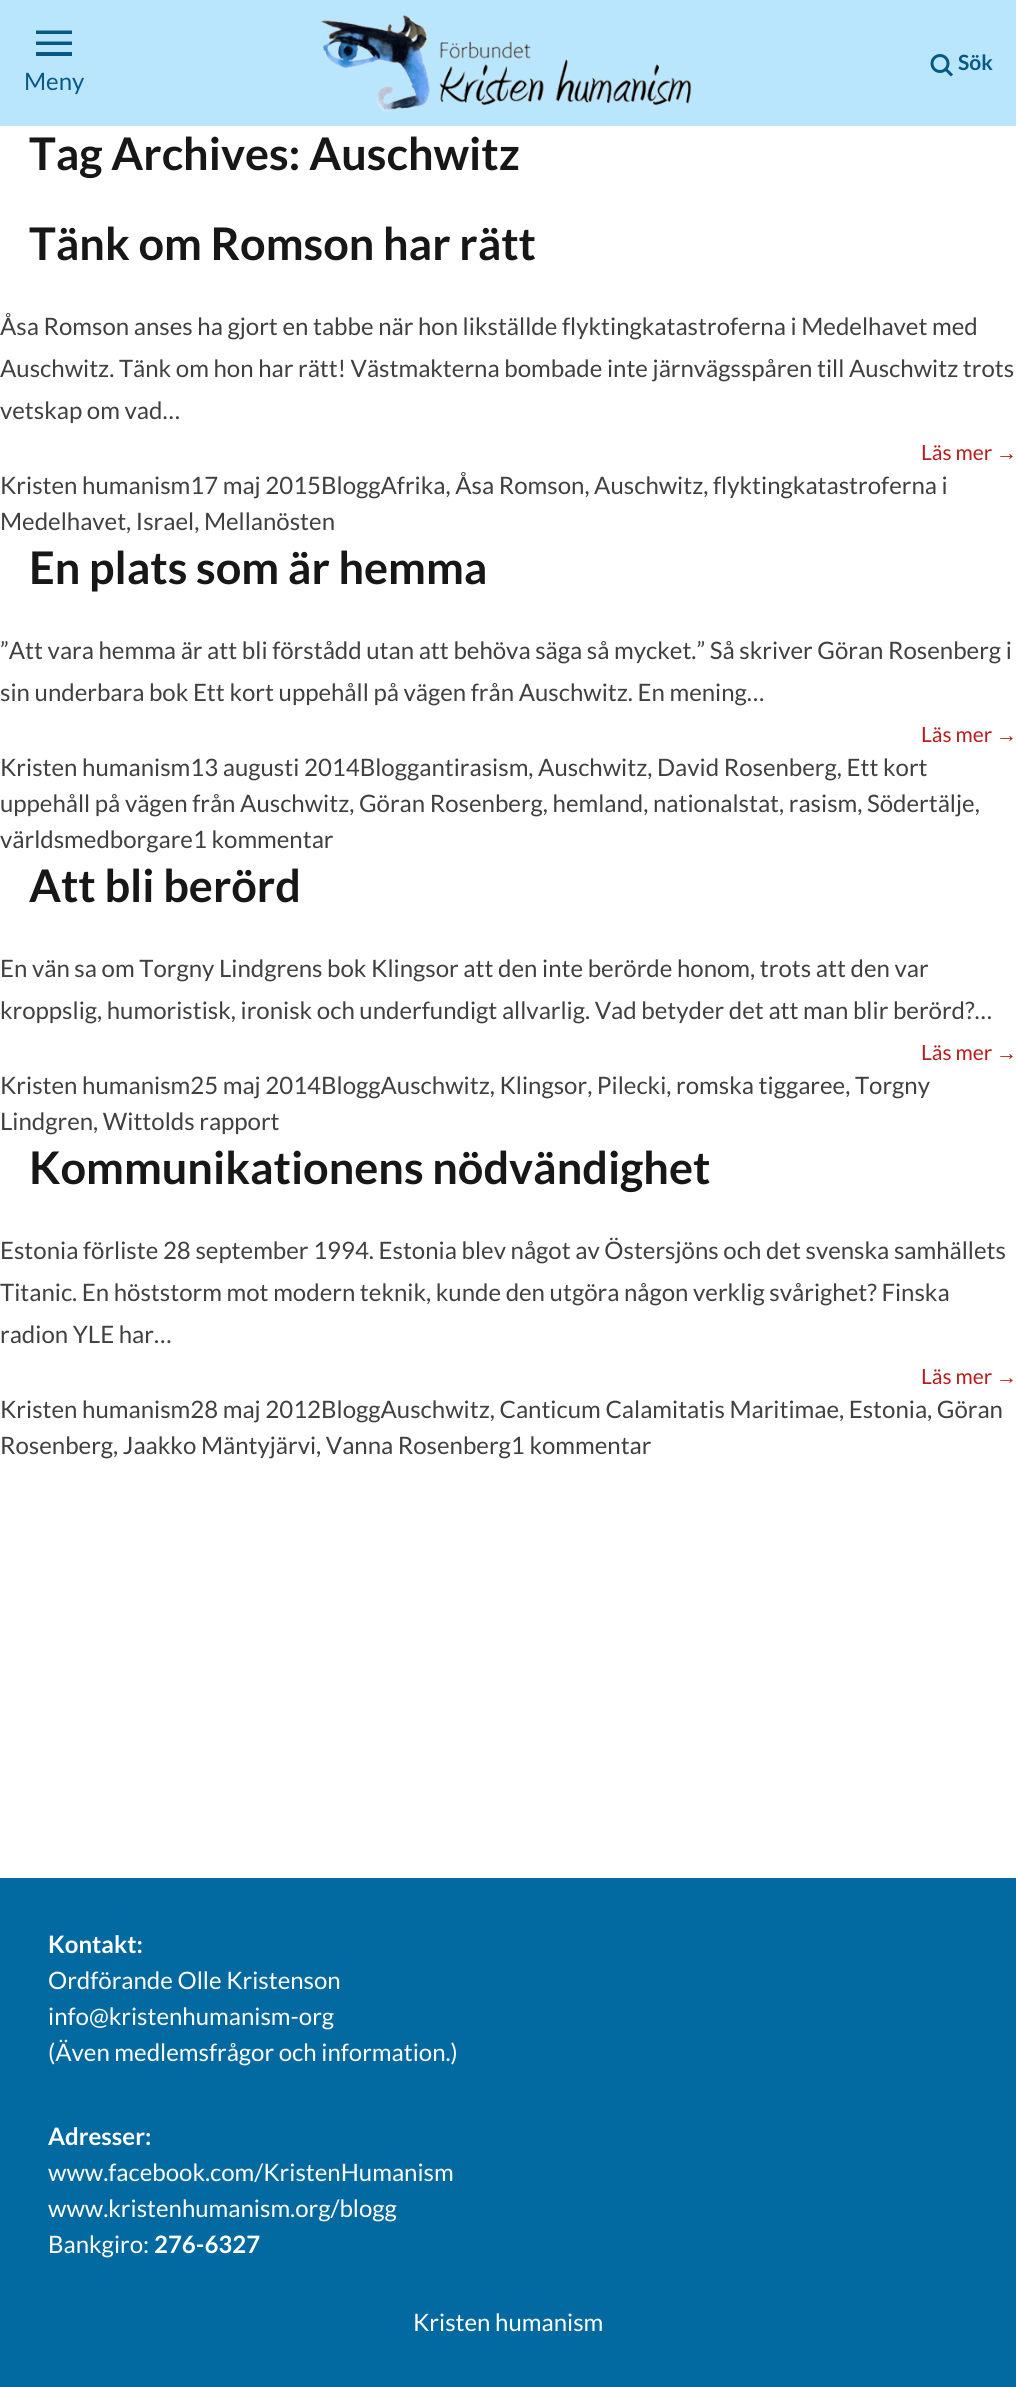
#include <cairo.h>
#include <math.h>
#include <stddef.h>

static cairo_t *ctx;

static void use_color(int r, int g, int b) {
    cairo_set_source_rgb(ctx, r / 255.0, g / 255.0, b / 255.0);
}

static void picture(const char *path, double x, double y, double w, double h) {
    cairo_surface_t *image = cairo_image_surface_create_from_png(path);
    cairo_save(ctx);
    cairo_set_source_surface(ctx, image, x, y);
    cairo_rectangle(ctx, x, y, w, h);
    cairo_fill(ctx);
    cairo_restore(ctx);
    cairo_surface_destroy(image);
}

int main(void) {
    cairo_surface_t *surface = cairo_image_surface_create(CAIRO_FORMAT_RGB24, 1016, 2387);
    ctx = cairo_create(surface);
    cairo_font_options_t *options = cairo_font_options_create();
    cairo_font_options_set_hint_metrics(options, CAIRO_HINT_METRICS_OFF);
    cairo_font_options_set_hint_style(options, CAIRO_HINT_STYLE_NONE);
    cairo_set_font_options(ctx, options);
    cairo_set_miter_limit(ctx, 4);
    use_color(255, 255, 255);
    cairo_paint(ctx);
    use_color(186, 230, 253);
    cairo_rectangle(ctx, 0, 0, 1016, 126);
    cairo_fill(ctx);
    picture("img1.png", 320, 14, 372, 98);
    cairo_arc(ctx, 940, 63.5, 8, 0, 2 * M_PI);
    use_color(7, 89, 133);
    cairo_set_line_width(ctx, 3);
    cairo_stroke(ctx);
    cairo_new_path(ctx);
    cairo_move_to(ctx, 946, 69.5);
    cairo_line_to(ctx, 952, 75.5);
    cairo_stroke(ctx);
    cairo_select_font_face(ctx, "Lato", CAIRO_FONT_SLANT_NORMAL, CAIRO_FONT_WEIGHT_BOLD);
    cairo_set_font_size(ctx, 21);
    cairo_move_to(ctx, 958, 70);
    cairo_show_text(ctx, "Sök");
    cairo_new_path(ctx);
    cairo_move_to(ctx, 36, 30.5);
    cairo_line_to(ctx, 72, 30.5);
    cairo_line_to(ctx, 72, 34);
    cairo_line_to(ctx, 36, 34);
    cairo_close_path(ctx);
    cairo_move_to(ctx, 36, 41.5);
    cairo_line_to(ctx, 72, 41.5);
    cairo_line_to(ctx, 72, 45);
    cairo_line_to(ctx, 36, 45);
    cairo_close_path(ctx);
    cairo_move_to(ctx, 36, 52);
    cairo_line_to(ctx, 72, 52);
    cairo_line_to(ctx, 72, 56);
    cairo_line_to(ctx, 36, 56);
    cairo_close_path(ctx);
    cairo_fill(ctx);
    cairo_select_font_face(ctx, "Lato", CAIRO_FONT_SLANT_NORMAL, CAIRO_FONT_WEIGHT_NORMAL);
    cairo_set_font_size(ctx, 24);
    cairo_move_to(ctx, 24, 90);
    cairo_show_text(ctx, "Meny");
    cairo_select_font_face(ctx, "Lato", CAIRO_FONT_SLANT_NORMAL, CAIRO_FONT_WEIGHT_BOLD);
    cairo_set_font_size(ctx, 45);
    use_color(23, 23, 23);
    cairo_move_to(ctx, 29, 170);
    cairo_show_text(ctx, "Tag Archives: Auschwitz");
    cairo_move_to(ctx, 29, 260);
    cairo_show_text(ctx, "Tänk om Romson har rätt");
    cairo_select_font_face(ctx, "Lato", CAIRO_FONT_SLANT_NORMAL, CAIRO_FONT_WEIGHT_NORMAL);
    cairo_set_font_size(ctx, 24);
    use_color(64, 64, 64);
    cairo_move_to(ctx, 0, 335);
    cairo_show_text(ctx, "Åsa Romson anses ha gjort en tabbe när hon likställde flyktingkatastroferna i Medelhavet med");
    cairo_move_to(ctx, 0, 377);
    cairo_show_text(ctx, "Auschwitz. Tänk om hon har rätt! Västmakterna bombade inte järnvägsspåren till Auschwitz trots");
    cairo_move_to(ctx, 0, 419);
    cairo_show_text(ctx, "vetskap om vad…");
    cairo_set_font_size(ctx, 21);
    use_color(185, 28, 28);
    cairo_move_to(ctx, 921, 460);
    cairo_show_text(ctx, "Läs mer");
    cairo_select_font_face(ctx, "Liberation Sans", CAIRO_FONT_SLANT_NORMAL, CAIRO_FONT_WEIGHT_NORMAL);
    cairo_move_to(ctx, 996, 460);
    cairo_show_text(ctx, "→");
    cairo_select_font_face(ctx, "Lato", CAIRO_FONT_SLANT_NORMAL, CAIRO_FONT_WEIGHT_NORMAL);
    cairo_set_font_size(ctx, 24);
    use_color(64, 64, 64);
    cairo_move_to(ctx, 0, 494);
    cairo_show_text(ctx, "Kristen humanism17 maj 2015BloggAfrika, Åsa Romson, Auschwitz, flyktingkatastroferna i");
    cairo_move_to(ctx, 0, 530);
    cairo_show_text(ctx, "Medelhavet, Israel, Mellanösten");
    cairo_select_font_face(ctx, "Lato", CAIRO_FONT_SLANT_NORMAL, CAIRO_FONT_WEIGHT_BOLD);
    cairo_set_font_size(ctx, 45);
    use_color(23, 23, 23);
    cairo_move_to(ctx, 29, 584);
    cairo_show_text(ctx, "En plats som är hemma");
    cairo_select_font_face(ctx, "Lato", CAIRO_FONT_SLANT_NORMAL, CAIRO_FONT_WEIGHT_NORMAL);
    cairo_set_font_size(ctx, 24);
    use_color(64, 64, 64);
    cairo_move_to(ctx, 0, 659);
    cairo_show_text(ctx, "”Att vara hemma är att bli förstådd utan att behöva säga så mycket.” Så skriver Göran Rosenberg i");
    cairo_move_to(ctx, 0, 701);
    cairo_show_text(ctx, "sin underbara bok Ett kort uppehåll på vägen från Auschwitz. En mening…");
    cairo_set_font_size(ctx, 21);
    use_color(185, 28, 28);
    cairo_move_to(ctx, 921, 742);
    cairo_show_text(ctx, "Läs mer");
    cairo_select_font_face(ctx, "Liberation Sans", CAIRO_FONT_SLANT_NORMAL, CAIRO_FONT_WEIGHT_NORMAL);
    cairo_move_to(ctx, 996, 742);
    cairo_show_text(ctx, "→");
    cairo_select_font_face(ctx, "Lato", CAIRO_FONT_SLANT_NORMAL, CAIRO_FONT_WEIGHT_NORMAL);
    cairo_set_font_size(ctx, 24);
    use_color(64, 64, 64);
    cairo_move_to(ctx, 0, 776);
    cairo_show_text(ctx, "Kristen humanism13 augusti 2014Bloggantirasism, Auschwitz, David Rosenberg, Ett kort");
    cairo_move_to(ctx, 0, 812);
    cairo_show_text(ctx, "uppehåll på vägen från Auschwitz, Göran Rosenberg, hemland, nationalstat, rasism, Södertälje,");
    cairo_move_to(ctx, 0, 848);
    cairo_show_text(ctx, "världsmedborgare1 kommentar");
    cairo_select_font_face(ctx, "Lato", CAIRO_FONT_SLANT_NORMAL, CAIRO_FONT_WEIGHT_BOLD);
    cairo_set_font_size(ctx, 45);
    use_color(23, 23, 23);
    cairo_move_to(ctx, 29, 902);
    cairo_show_text(ctx, "Att bli berörd");
    cairo_select_font_face(ctx, "Lato", CAIRO_FONT_SLANT_NORMAL, CAIRO_FONT_WEIGHT_NORMAL);
    cairo_set_font_size(ctx, 24);
    use_color(64, 64, 64);
    cairo_move_to(ctx, 0, 977);
    cairo_show_text(ctx, "En vän sa om Torgny Lindgrens bok Klingsor att den inte berörde honom, trots att den var");
    cairo_move_to(ctx, 0, 1019);
    cairo_show_text(ctx, "kroppslig, humoristisk, ironisk och underfundigt allvarlig. Vad betyder det att man blir berörd?…");
    cairo_set_font_size(ctx, 21);
    use_color(185, 28, 28);
    cairo_move_to(ctx, 921, 1060);
    cairo_show_text(ctx, "Läs mer");
    cairo_select_font_face(ctx, "Liberation Sans", CAIRO_FONT_SLANT_NORMAL, CAIRO_FONT_WEIGHT_NORMAL);
    cairo_move_to(ctx, 996, 1060);
    cairo_show_text(ctx, "→");
    cairo_select_font_face(ctx, "Lato", CAIRO_FONT_SLANT_NORMAL, CAIRO_FONT_WEIGHT_NORMAL);
    cairo_set_font_size(ctx, 24);
    use_color(64, 64, 64);
    cairo_move_to(ctx, 0, 1094);
    cairo_show_text(ctx, "Kristen humanism25 maj 2014BloggAuschwitz, Klingsor, Pilecki, romska tiggaree, Torgny");
    cairo_move_to(ctx, 0, 1130);
    cairo_show_text(ctx, "Lindgren, Wittolds rapport");
    cairo_select_font_face(ctx, "Lato", CAIRO_FONT_SLANT_NORMAL, CAIRO_FONT_WEIGHT_BOLD);
    cairo_set_font_size(ctx, 45);
    use_color(23, 23, 23);
    cairo_move_to(ctx, 29, 1184);
    cairo_show_text(ctx, "Kommunikationens nödvändighet");
    cairo_select_font_face(ctx, "Lato", CAIRO_FONT_SLANT_NORMAL, CAIRO_FONT_WEIGHT_NORMAL);
    cairo_set_font_size(ctx, 24);
    use_color(64, 64, 64);
    cairo_move_to(ctx, 0, 1259);
    cairo_show_text(ctx, "Estonia förliste 28 september 1994. Estonia blev något av Östersjöns och det svenska samhällets");
    cairo_move_to(ctx, 0, 1301);
    cairo_show_text(ctx, "Titanic. En höststorm mot modern teknik, kunde den utgöra någon verklig svårighet? Finska");
    cairo_move_to(ctx, 0, 1343);
    cairo_show_text(ctx, "radion YLE har…");
    cairo_set_font_size(ctx, 21);
    use_color(185, 28, 28);
    cairo_move_to(ctx, 921, 1384);
    cairo_show_text(ctx, "Läs mer");
    cairo_select_font_face(ctx, "Liberation Sans", CAIRO_FONT_SLANT_NORMAL, CAIRO_FONT_WEIGHT_NORMAL);
    cairo_move_to(ctx, 996, 1384);
    cairo_show_text(ctx, "→");
    cairo_select_font_face(ctx, "Lato", CAIRO_FONT_SLANT_NORMAL, CAIRO_FONT_WEIGHT_NORMAL);
    cairo_set_font_size(ctx, 24);
    use_color(64, 64, 64);
    cairo_move_to(ctx, 0, 1418);
    cairo_show_text(ctx, "Kristen humanism28 maj 2012BloggAuschwitz, Canticum Calamitatis Maritimae, Estonia, Göran");
    cairo_move_to(ctx, 0, 1454);
    cairo_show_text(ctx, "Rosenberg, Jaakko Mäntyjärvi, Vanna Rosenberg1 kommentar");
    use_color(3, 105, 161);
    cairo_rectangle(ctx, 0, 1878, 1016, 509);
    cairo_fill(ctx);
    cairo_select_font_face(ctx, "Lato", CAIRO_FONT_SLANT_NORMAL, CAIRO_FONT_WEIGHT_BOLD);
    use_color(255, 255, 255);
    cairo_move_to(ctx, 48, 1953);
    cairo_show_text(ctx, "Kontakt:");
    cairo_select_font_face(ctx, "Lato", CAIRO_FONT_SLANT_NORMAL, CAIRO_FONT_WEIGHT_NORMAL);
    cairo_move_to(ctx, 48, 1989);
    cairo_show_text(ctx, "Ordförande Olle Kristenson");
    cairo_move_to(ctx, 48, 2025);
    cairo_show_text(ctx, "info@kristenhumanism-org");
    cairo_move_to(ctx, 48, 2061);
    cairo_show_text(ctx, "(Även medlemsfrågor och information.)");
    cairo_select_font_face(ctx, "Lato", CAIRO_FONT_SLANT_NORMAL, CAIRO_FONT_WEIGHT_BOLD);
    cairo_move_to(ctx, 48, 2145);
    cairo_show_text(ctx, "Adresser:");
    cairo_select_font_face(ctx, "Lato", CAIRO_FONT_SLANT_NORMAL, CAIRO_FONT_WEIGHT_NORMAL);
    cairo_move_to(ctx, 48, 2181);
    cairo_show_text(ctx, "www.facebook.com/KristenHumanism");
    cairo_move_to(ctx, 48, 2217);
    cairo_show_text(ctx, "www.kristenhumanism.org/blogg");
    cairo_move_to(ctx, 48, 2253);
    cairo_show_text(ctx, "Bankgiro:");
    cairo_select_font_face(ctx, "Lato", CAIRO_FONT_SLANT_NORMAL, CAIRO_FONT_WEIGHT_BOLD);
    cairo_move_to(ctx, 154, 2253);
    cairo_show_text(ctx, "276-6327");
    cairo_select_font_face(ctx, "Lato", CAIRO_FONT_SLANT_NORMAL, CAIRO_FONT_WEIGHT_NORMAL);
    cairo_move_to(ctx, 413, 2331);
    cairo_show_text(ctx, "Kristen humanism");
    cairo_surface_write_to_png(surface, "result.png");
    cairo_font_options_destroy(options);
    cairo_destroy(ctx);
    cairo_surface_destroy(surface);
    return 0;
}
